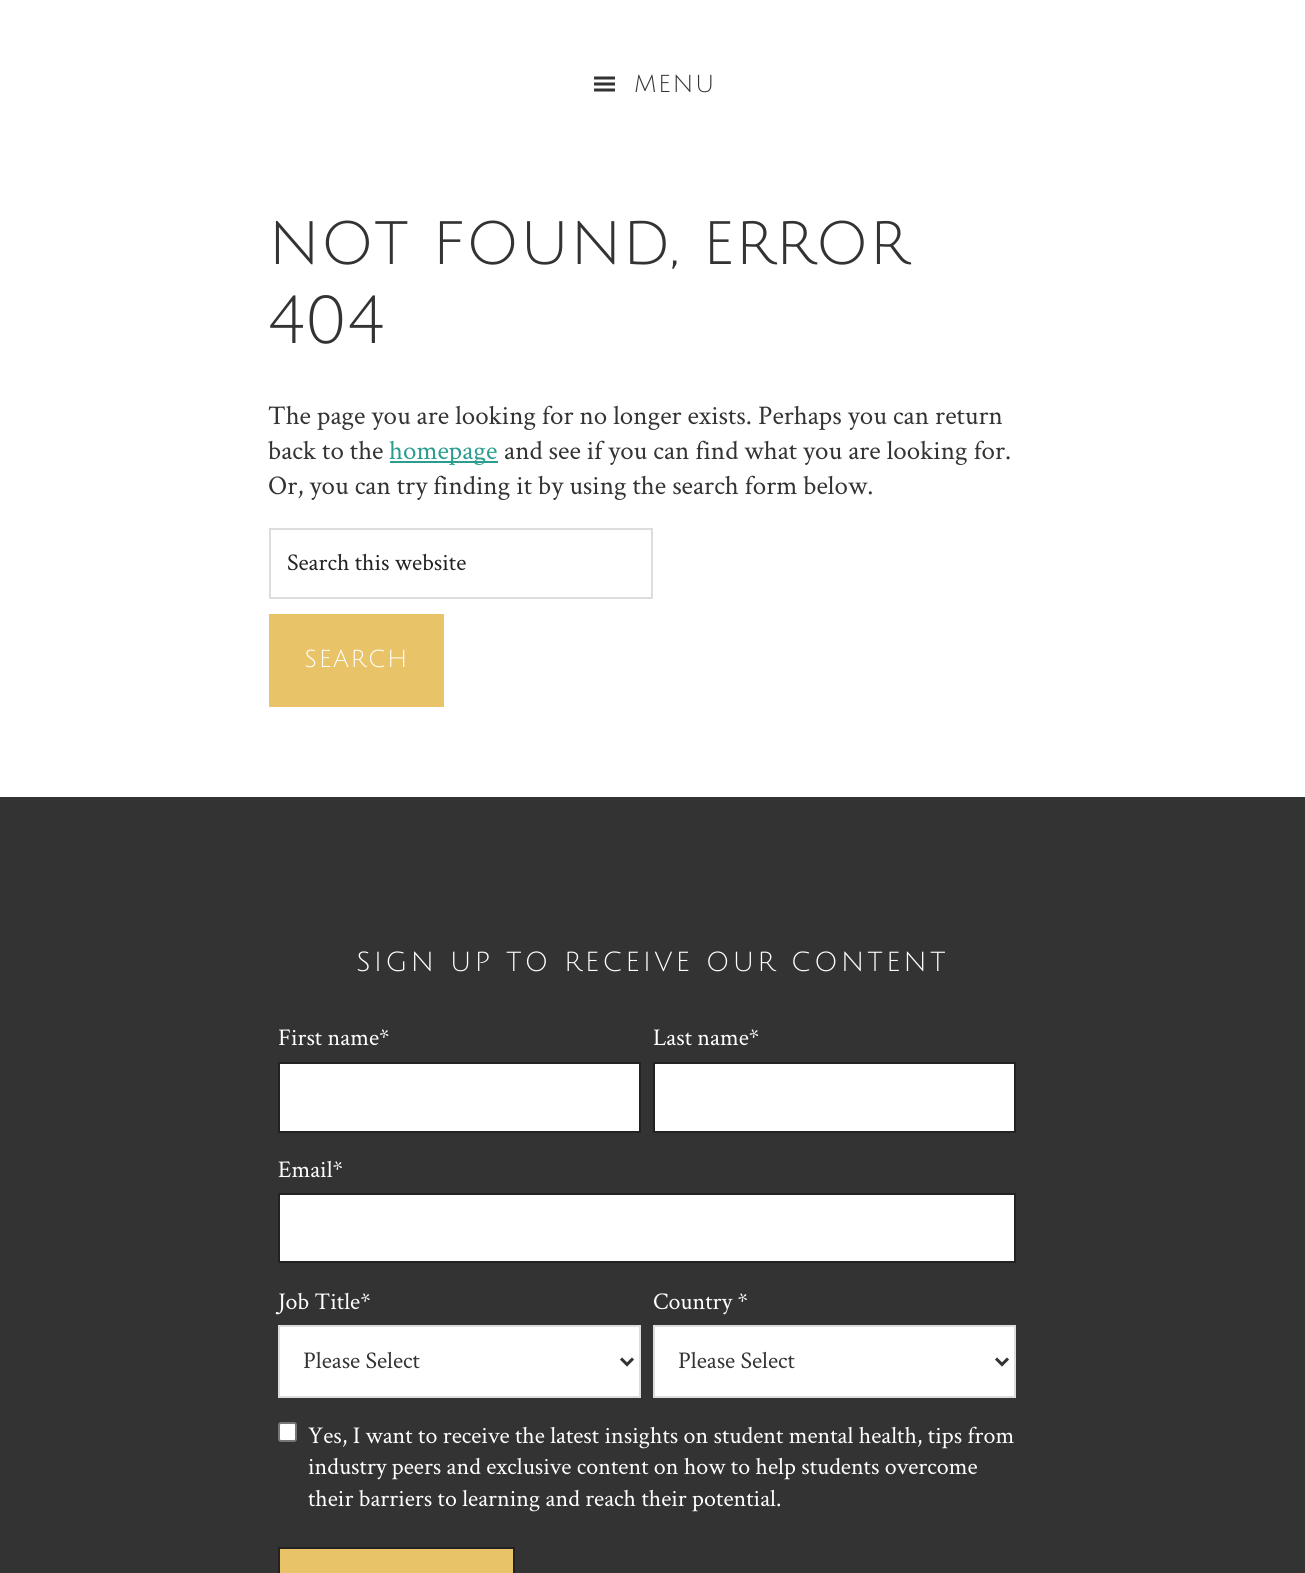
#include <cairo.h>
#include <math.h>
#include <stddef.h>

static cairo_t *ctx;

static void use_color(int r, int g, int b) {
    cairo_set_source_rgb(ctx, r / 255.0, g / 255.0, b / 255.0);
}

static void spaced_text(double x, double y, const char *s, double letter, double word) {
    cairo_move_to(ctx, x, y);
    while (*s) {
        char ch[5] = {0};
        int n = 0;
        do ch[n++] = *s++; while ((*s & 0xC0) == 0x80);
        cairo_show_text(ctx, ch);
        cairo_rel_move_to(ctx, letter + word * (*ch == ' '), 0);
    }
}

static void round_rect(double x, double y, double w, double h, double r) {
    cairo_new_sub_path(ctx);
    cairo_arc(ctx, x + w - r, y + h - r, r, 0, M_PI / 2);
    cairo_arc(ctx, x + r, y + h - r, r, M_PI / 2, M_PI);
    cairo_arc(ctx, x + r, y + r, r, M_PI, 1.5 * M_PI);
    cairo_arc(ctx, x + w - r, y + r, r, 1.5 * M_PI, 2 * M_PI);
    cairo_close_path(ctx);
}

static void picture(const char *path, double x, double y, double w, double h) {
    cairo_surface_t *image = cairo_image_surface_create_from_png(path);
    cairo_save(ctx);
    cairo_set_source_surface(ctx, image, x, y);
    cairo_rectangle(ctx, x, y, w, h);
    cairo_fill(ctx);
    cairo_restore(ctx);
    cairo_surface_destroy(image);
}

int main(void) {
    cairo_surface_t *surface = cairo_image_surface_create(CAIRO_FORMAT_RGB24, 1305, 1573);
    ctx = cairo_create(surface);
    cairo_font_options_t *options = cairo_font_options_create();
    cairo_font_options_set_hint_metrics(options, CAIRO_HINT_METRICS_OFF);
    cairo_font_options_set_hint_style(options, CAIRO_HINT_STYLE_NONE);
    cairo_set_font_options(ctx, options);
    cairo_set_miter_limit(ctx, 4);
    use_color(255, 255, 255);
    cairo_paint(ctx);
    picture("img1.png", 594, 76, 21, 16);
    cairo_select_font_face(ctx, "Julius Sans One", CAIRO_FONT_SLANT_NORMAL, CAIRO_FONT_WEIGHT_NORMAL);
    cairo_set_font_size(ctx, 24);
    use_color(51, 51, 51);
    spaced_text(634, 92, "MENU", 1.5, 0);
    cairo_set_font_size(ctx, 66);
    cairo_move_to(ctx, 268, 264);
    cairo_show_text(ctx, "not found, error");
    cairo_move_to(ctx, 268, 343);
    cairo_show_text(ctx, "404");
    cairo_select_font_face(ctx, "Crimson Text", CAIRO_FONT_SLANT_NORMAL, CAIRO_FONT_WEIGHT_NORMAL);
    cairo_set_font_size(ctx, 27);
    cairo_move_to(ctx, 268, 424);
    cairo_show_text(ctx, "The page you are looking for no longer exists. Perhaps you can return");
    cairo_move_to(ctx, 268, 459);
    cairo_show_text(ctx, "back to the");
    use_color(42, 157, 143);
    cairo_rectangle(ctx, 390, 461, 108, 2);
    cairo_fill(ctx);
    cairo_move_to(ctx, 389, 459);
    cairo_show_text(ctx, "homepage");
    use_color(51, 51, 51);
    cairo_move_to(ctx, 504, 459);
    cairo_show_text(ctx, "and see if you can find what you are looking for.");
    cairo_move_to(ctx, 268, 494);
    cairo_show_text(ctx, "Or, you can try finding it by using the search form below.");
    cairo_rectangle(ctx, 270, 529, 382, 69);
    use_color(221, 221, 221);
    cairo_stroke(ctx);
    cairo_set_font_size(ctx, 24);
    use_color(34, 34, 34);
    cairo_move_to(ctx, 287, 570);
    cairo_show_text(ctx, "Search this website");
    use_color(233, 195, 103);
    cairo_rectangle(ctx, 269, 614, 175, 93);
    cairo_fill(ctx);
    cairo_select_font_face(ctx, "Julius Sans One", CAIRO_FONT_SLANT_NORMAL, CAIRO_FONT_WEIGHT_NORMAL);
    use_color(255, 255, 255);
    spaced_text(304, 667, "SEARCH", 1.5, 0);
    use_color(51, 51, 51);
    cairo_rectangle(ctx, 0, 797, 1305, 776);
    cairo_fill(ctx);
    cairo_set_font_size(ctx, 27);
    use_color(255, 255, 255);
    spaced_text(356, 971, "SIGN UP TO RECEIVE OUR CONTENT", 3, 0);
    cairo_select_font_face(ctx, "Crimson Text", CAIRO_FONT_SLANT_NORMAL, CAIRO_FONT_WEIGHT_NORMAL);
    cairo_set_font_size(ctx, 24);
    cairo_move_to(ctx, 278, 1045);
    cairo_show_text(ctx, "First name*");
    cairo_rectangle(ctx, 279, 1063, 361, 69);
    cairo_fill_preserve(ctx);
    use_color(34, 34, 34);
    cairo_stroke(ctx);
    use_color(255, 255, 255);
    cairo_move_to(ctx, 653, 1045);
    cairo_show_text(ctx, "Last name*");
    cairo_rectangle(ctx, 654, 1063, 361, 69);
    cairo_fill_preserve(ctx);
    use_color(34, 34, 34);
    cairo_stroke(ctx);
    use_color(255, 255, 255);
    cairo_move_to(ctx, 278, 1177);
    cairo_show_text(ctx, "Email*");
    cairo_rectangle(ctx, 279, 1194, 736, 68);
    cairo_fill_preserve(ctx);
    use_color(34, 34, 34);
    cairo_stroke(ctx);
    use_color(255, 255, 255);
    cairo_move_to(ctx, 278, 1309);
    cairo_show_text(ctx, "Job Title*");
    cairo_rectangle(ctx, 279, 1326, 361, 71);
    cairo_fill_preserve(ctx);
    use_color(221, 221, 221);
    cairo_stroke(ctx);
    cairo_new_path(ctx);
    cairo_move_to(ctx, 621, 1358.5);
    cairo_line_to(ctx, 627, 1364.5);
    cairo_line_to(ctx, 633, 1358.5);
    use_color(51, 51, 51);
    cairo_set_line_width(ctx, 3);
    cairo_stroke(ctx);
    cairo_move_to(ctx, 303, 1368);
    cairo_show_text(ctx, "Please Select");
    use_color(255, 255, 255);
    cairo_move_to(ctx, 653, 1309);
    cairo_show_text(ctx, "Country *");
    cairo_rectangle(ctx, 654, 1326, 361, 71);
    cairo_fill_preserve(ctx);
    use_color(221, 221, 221);
    cairo_set_line_width(ctx, 2);
    cairo_stroke(ctx);
    cairo_new_path(ctx);
    cairo_move_to(ctx, 996, 1358.5);
    cairo_line_to(ctx, 1002, 1364.5);
    cairo_line_to(ctx, 1008, 1358.5);
    use_color(51, 51, 51);
    cairo_set_line_width(ctx, 3);
    cairo_stroke(ctx);
    cairo_move_to(ctx, 678, 1368);
    cairo_show_text(ctx, "Please Select");
    use_color(255, 255, 255);
    round_rect(279, 1423, 17, 18, 2);
    cairo_fill_preserve(ctx);
    use_color(118, 118, 118);
    cairo_set_line_width(ctx, 2);
    cairo_stroke(ctx);
    use_color(255, 255, 255);
    cairo_move_to(ctx, 308, 1443);
    cairo_show_text(ctx, "Yes, I want to receive the latest insights on student mental health, tips from");
    cairo_move_to(ctx, 308, 1474);
    cairo_show_text(ctx, "industry peers and exclusive content on how to help students overcome");
    cairo_move_to(ctx, 308, 1506);
    cairo_show_text(ctx, "their barriers to learning and reach their potential.");
    use_color(233, 195, 103);
    cairo_rectangle(ctx, 279, 1548, 235, 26);
    cairo_fill_preserve(ctx);
    use_color(34, 34, 34);
    cairo_stroke(ctx);
    cairo_surface_write_to_png(surface, "result.png");
    cairo_font_options_destroy(options);
    cairo_destroy(ctx);
    cairo_surface_destroy(surface);
    return 0;
}
